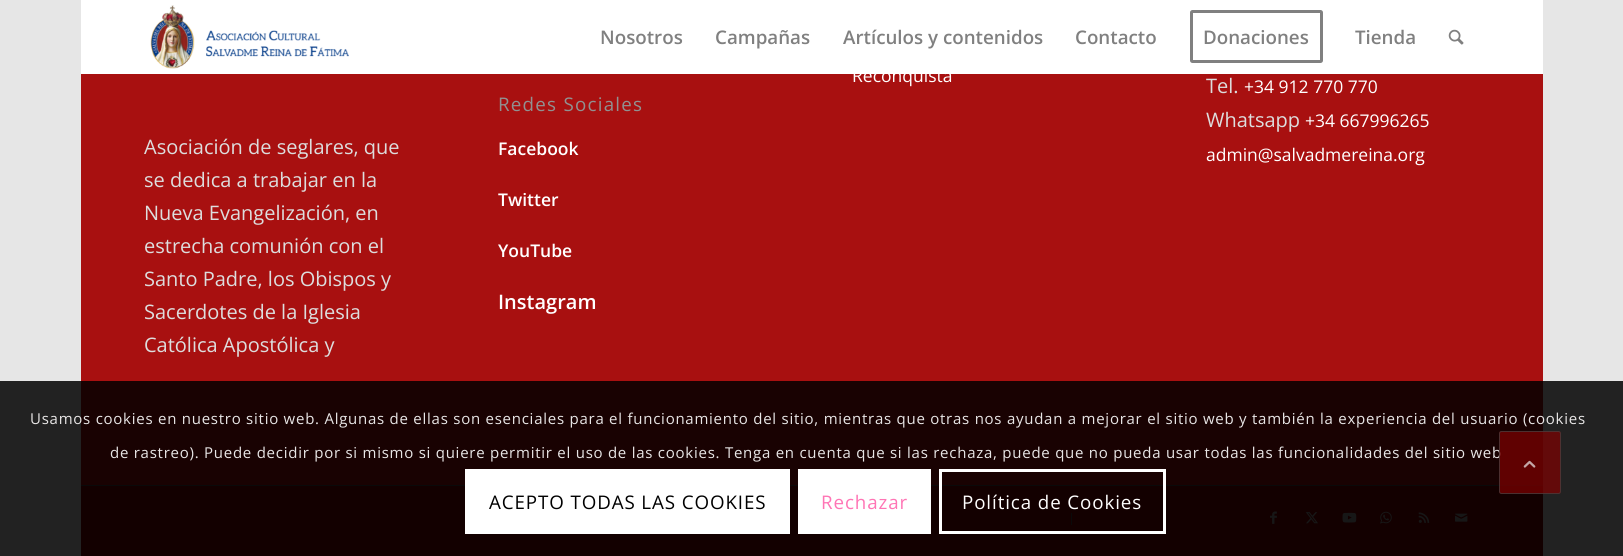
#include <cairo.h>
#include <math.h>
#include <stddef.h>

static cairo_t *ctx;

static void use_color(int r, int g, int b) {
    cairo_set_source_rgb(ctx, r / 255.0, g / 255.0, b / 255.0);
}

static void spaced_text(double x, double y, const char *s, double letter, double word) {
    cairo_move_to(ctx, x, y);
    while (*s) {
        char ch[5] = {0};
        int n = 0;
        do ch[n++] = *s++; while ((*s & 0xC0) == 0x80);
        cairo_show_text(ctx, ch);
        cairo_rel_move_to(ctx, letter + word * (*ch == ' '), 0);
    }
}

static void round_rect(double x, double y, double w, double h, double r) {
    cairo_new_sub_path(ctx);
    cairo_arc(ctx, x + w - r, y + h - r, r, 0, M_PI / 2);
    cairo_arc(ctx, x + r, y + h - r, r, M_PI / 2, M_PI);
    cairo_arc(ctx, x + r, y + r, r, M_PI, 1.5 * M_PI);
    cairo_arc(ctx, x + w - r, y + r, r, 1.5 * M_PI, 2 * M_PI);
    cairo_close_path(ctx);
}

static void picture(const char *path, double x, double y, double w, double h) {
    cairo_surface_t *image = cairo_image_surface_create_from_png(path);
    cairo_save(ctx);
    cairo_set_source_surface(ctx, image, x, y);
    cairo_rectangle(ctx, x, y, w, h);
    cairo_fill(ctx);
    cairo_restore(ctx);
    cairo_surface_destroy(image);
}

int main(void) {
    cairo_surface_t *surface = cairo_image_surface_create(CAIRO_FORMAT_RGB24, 1623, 556);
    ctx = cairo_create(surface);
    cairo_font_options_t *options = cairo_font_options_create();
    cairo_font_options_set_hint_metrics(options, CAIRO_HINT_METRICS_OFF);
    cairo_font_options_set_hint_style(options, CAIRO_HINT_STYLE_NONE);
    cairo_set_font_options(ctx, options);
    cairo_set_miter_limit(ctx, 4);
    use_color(230, 230, 230);
    cairo_paint(ctx);
    use_color(255, 255, 255);
    cairo_rectangle(ctx, 81, 0, 1462, 74);
    cairo_fill(ctx);
    picture("img1.png", 150, 5, 199, 64);
    cairo_select_font_face(ctx, "Open Sans SemiBold", CAIRO_FONT_SLANT_NORMAL, CAIRO_FONT_WEIGHT_NORMAL);
    cairo_set_font_size(ctx, 18.75);
    use_color(128, 128, 128);
    cairo_move_to(ctx, 600, 44);
    cairo_show_text(ctx, "Nosotros");
    cairo_move_to(ctx, 715, 44);
    cairo_show_text(ctx, "Campañas");
    cairo_move_to(ctx, 843, 44);
    cairo_show_text(ctx, "Artículos y contenidos");
    cairo_move_to(ctx, 1075, 44);
    cairo_show_text(ctx, "Contacto");
    round_rect(1191.5, 11.5, 130, 50, 1);
    cairo_set_line_width(ctx, 3);
    cairo_stroke(ctx);
    cairo_move_to(ctx, 1203, 44);
    cairo_show_text(ctx, "Donaciones");
    cairo_move_to(ctx, 1355, 44);
    cairo_show_text(ctx, "Tienda");
    picture("img2.png", 1448, 29, 16, 16);
    use_color(168, 16, 16);
    cairo_rectangle(ctx, 81, 74, 1462, 411);
    cairo_fill(ctx);
    cairo_select_font_face(ctx, "Open Sans", CAIRO_FONT_SLANT_NORMAL, CAIRO_FONT_WEIGHT_NORMAL);
    cairo_set_font_size(ctx, 20);
    use_color(221, 221, 221);
    cairo_move_to(ctx, 144, 154);
    cairo_show_text(ctx, "Asociación de seglares, que");
    cairo_move_to(ctx, 144, 187);
    cairo_show_text(ctx, "se dedica a trabajar en la");
    cairo_move_to(ctx, 144, 220);
    cairo_show_text(ctx, "Nueva Evangelización, en");
    cairo_move_to(ctx, 144, 253);
    cairo_show_text(ctx, "estrecha comunión con el");
    cairo_move_to(ctx, 144, 286);
    cairo_show_text(ctx, "Santo Padre, los Obispos y");
    cairo_move_to(ctx, 144, 319);
    cairo_show_text(ctx, "Sacerdotes de la Iglesia");
    cairo_move_to(ctx, 144, 352);
    cairo_show_text(ctx, "Católica Apostólica y");
    cairo_set_font_size(ctx, 18.75);
    use_color(145, 145, 145);
    spaced_text(498, 111, "Redes Sociales", 1.25, 0);
    cairo_select_font_face(ctx, "Open Sans SemiBold", CAIRO_FONT_SLANT_NORMAL, CAIRO_FONT_WEIGHT_NORMAL);
    cairo_set_font_size(ctx, 17.5);
    use_color(255, 255, 255);
    cairo_move_to(ctx, 498, 155);
    cairo_show_text(ctx, "Facebook");
    cairo_move_to(ctx, 498, 206);
    cairo_show_text(ctx, "Twitter");
    cairo_move_to(ctx, 498, 257);
    cairo_show_text(ctx, "YouTube");
    cairo_set_font_size(ctx, 20);
    cairo_move_to(ctx, 498, 309);
    cairo_show_text(ctx, "Instagram");
    cairo_select_font_face(ctx, "Open Sans", CAIRO_FONT_SLANT_NORMAL, CAIRO_FONT_WEIGHT_NORMAL);
    cairo_set_font_size(ctx, 17.5);
    cairo_move_to(ctx, 852, 82);
    cairo_show_text(ctx, "Reconquista");
    cairo_set_font_size(ctx, 20);
    use_color(221, 221, 221);
    cairo_move_to(ctx, 1206, 93);
    cairo_show_text(ctx, "Tel.");
    cairo_set_font_size(ctx, 17.5);
    use_color(255, 255, 255);
    cairo_move_to(ctx, 1244, 93);
    cairo_show_text(ctx, "+34 912 770 770");
    cairo_set_font_size(ctx, 20);
    use_color(221, 221, 221);
    cairo_move_to(ctx, 1206, 127);
    cairo_show_text(ctx, "Whatsapp");
    cairo_set_font_size(ctx, 17.5);
    use_color(255, 255, 255);
    cairo_move_to(ctx, 1305, 127);
    cairo_show_text(ctx, "+34 667996265");
    cairo_move_to(ctx, 1206, 161);
    cairo_show_text(ctx, "admin@salvadmereina.org");
    use_color(128, 0, 0);
    cairo_rectangle(ctx, 81, 486, 1462, 70);
    cairo_fill(ctx);
    use_color(68, 68, 68);
    cairo_rectangle(ctx, 81, 485, 1462, 1);
    cairo_fill(ctx);
    cairo_rectangle(ctx, 1071, 513, 1, 12);
    cairo_fill(ctx);
    picture("img3.png", 1270, 511, 7, 13);
    picture("img4.png", 1305, 512, 13, 12);
    picture("img5.png", 1342, 512, 15, 11);
    picture("img6.png", 1380, 511, 12, 13);
    picture("img7.png", 1418, 512, 12, 11);
    picture("img8.png", 1455, 513, 13, 9);
    cairo_set_source_rgba(ctx, 0, 0, 0, 0.85);
    cairo_rectangle(ctx, 0, 381, 1623, 175);
    cairo_fill(ctx);
    cairo_set_font_size(ctx, 15);
    use_color(232, 230, 230);
    spaced_text(30, 424, "Usamos cookies en nuestro sitio web. Algunas de ellas son esenciales para el funcionamiento del sitio, mientras que otras nos ayudan a mejorar el sitio web y también la experiencia del usuario (cookies", 0.75, 0);
    spaced_text(110, 458, "de rastreo). Puede decidir por si mismo si quiere permitir el uso de las cookies. Tenga en cuenta que si las rechaza, puede que no pueda usar todas las funcionalidades del sitio web", 0.75, 0);
    use_color(255, 255, 255);
    cairo_rectangle(ctx, 465, 469, 325, 65);
    cairo_fill(ctx);
    cairo_set_font_size(ctx, 18.75);
    use_color(0, 0, 0);
    spaced_text(489, 509, "ACEPTO TODAS LAS COOKIES", 0.9, 0);
    use_color(255, 255, 255);
    cairo_rectangle(ctx, 798, 469, 133, 65);
    cairo_fill(ctx);
    use_color(255, 117, 181);
    spaced_text(821, 509, "Rechazar", 0.9, 0);
    cairo_rectangle(ctx, 940.5, 470.5, 224, 62);
    use_color(255, 255, 255);
    cairo_stroke(ctx);
    spaced_text(962, 509, "Política de Cookies", 0.9, 0);
    cairo_set_source_rgba(ctx, 0.502, 0, 0, 0.7);
    round_rect(1499, 431, 62, 63, 2.5);
    cairo_fill(ctx);
    round_rect(1499.5, 431.5, 61, 62, 2);
    cairo_set_source_rgba(ctx, 0.267, 0.267, 0.267, 0.7);
    cairo_set_line_width(ctx, 1);
    cairo_stroke(ctx);
    picture("img9.png", 1523, 460, 13, 8);
    cairo_surface_write_to_png(surface, "result.png");
    cairo_font_options_destroy(options);
    cairo_destroy(ctx);
    cairo_surface_destroy(surface);
    return 0;
}
